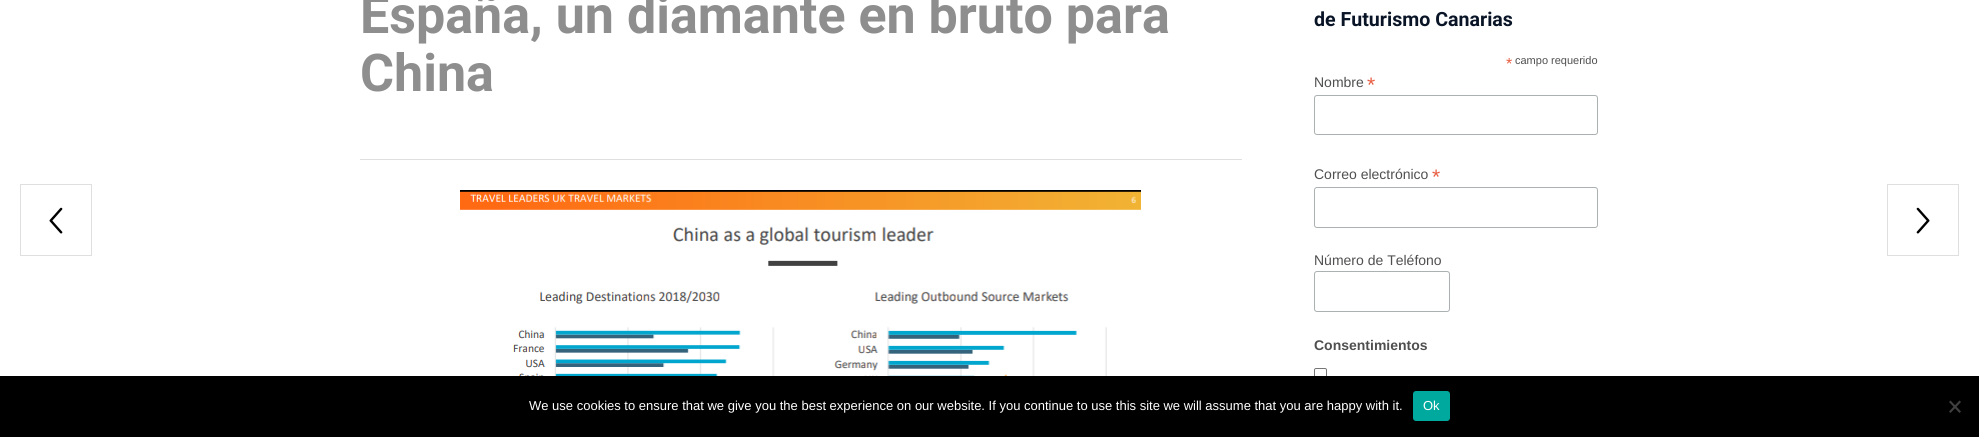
#include <cairo.h>
#include <math.h>
#include <stddef.h>

static cairo_t *ctx;

static void use_color(int r, int g, int b) {
    cairo_set_source_rgb(ctx, r / 255.0, g / 255.0, b / 255.0);
}

static void round_rect(double x, double y, double w, double h, double r) {
    cairo_new_sub_path(ctx);
    cairo_arc(ctx, x + w - r, y + h - r, r, 0, M_PI / 2);
    cairo_arc(ctx, x + r, y + h - r, r, M_PI / 2, M_PI);
    cairo_arc(ctx, x + r, y + r, r, M_PI, 1.5 * M_PI);
    cairo_arc(ctx, x + w - r, y + r, r, 1.5 * M_PI, 2 * M_PI);
    cairo_close_path(ctx);
}

static void picture(const char *path, double x, double y, double w, double h) {
    cairo_surface_t *image = cairo_image_surface_create_from_png(path);
    cairo_save(ctx);
    cairo_set_source_surface(ctx, image, x, y);
    cairo_rectangle(ctx, x, y, w, h);
    cairo_fill(ctx);
    cairo_restore(ctx);
    cairo_surface_destroy(image);
}

int main(void) {
    cairo_surface_t *surface = cairo_image_surface_create(CAIRO_FORMAT_RGB24, 1979, 437);
    ctx = cairo_create(surface);
    cairo_font_options_t *options = cairo_font_options_create();
    cairo_font_options_set_hint_metrics(options, CAIRO_HINT_METRICS_OFF);
    cairo_font_options_set_hint_style(options, CAIRO_HINT_STYLE_NONE);
    cairo_set_font_options(ctx, options);
    cairo_set_miter_limit(ctx, 4);
    use_color(255, 255, 255);
    cairo_paint(ctx);
    use_color(223, 223, 223);
    cairo_rectangle(ctx, 360, 159, 882, 1);
    cairo_fill(ctx);
    cairo_select_font_face(ctx, "Roboto", CAIRO_FONT_SLANT_NORMAL, CAIRO_FONT_WEIGHT_BOLD);
    cairo_set_font_size(ctx, 52);
    use_color(142, 142, 142);
    cairo_move_to(ctx, 360, 33);
    cairo_show_text(ctx, "España, un diamante en bruto para");
    cairo_move_to(ctx, 360, 91);
    cairo_show_text(ctx, "China");
    picture("img1.png", 460, 190, 681, 186);
    cairo_set_font_size(ctx, 19.6);
    use_color(9, 20, 39);
    cairo_move_to(ctx, 1314, 26);
    cairo_show_text(ctx, "de Futurismo Canarias");
    cairo_select_font_face(ctx, "Liberation Sans", CAIRO_FONT_SLANT_NORMAL, CAIRO_FONT_WEIGHT_NORMAL);
    cairo_set_font_size(ctx, 16);
    use_color(232, 92, 65);
    cairo_move_to(ctx, 1506, 69);
    cairo_show_text(ctx, "*");
    cairo_set_font_size(ctx, 11);
    use_color(79, 79, 80);
    cairo_move_to(ctx, 1515, 64);
    cairo_show_text(ctx, "campo requerido");
    cairo_set_font_size(ctx, 14);
    cairo_move_to(ctx, 1314, 87);
    cairo_show_text(ctx, "Nombre");
    cairo_set_font_size(ctx, 21);
    use_color(232, 92, 65);
    cairo_move_to(ctx, 1367, 92);
    cairo_show_text(ctx, "*");
    round_rect(1314.5, 95.5, 283, 39, 2.5);
    use_color(171, 176, 178);
    cairo_set_line_width(ctx, 1);
    cairo_stroke(ctx);
    cairo_set_font_size(ctx, 14);
    use_color(79, 79, 80);
    cairo_move_to(ctx, 1314, 179);
    cairo_show_text(ctx, "Correo electrónico");
    cairo_set_font_size(ctx, 21);
    use_color(232, 92, 65);
    cairo_move_to(ctx, 1432, 184);
    cairo_show_text(ctx, "*");
    round_rect(1314.5, 187.5, 283, 40, 2.5);
    use_color(171, 176, 178);
    cairo_stroke(ctx);
    cairo_set_font_size(ctx, 14);
    use_color(79, 79, 80);
    cairo_move_to(ctx, 1314, 265);
    cairo_show_text(ctx, "Número de Teléfono");
    round_rect(1314.5, 271.5, 135, 40, 2.5);
    use_color(171, 176, 178);
    cairo_stroke(ctx);
    cairo_select_font_face(ctx, "Liberation Sans", CAIRO_FONT_SLANT_NORMAL, CAIRO_FONT_WEIGHT_BOLD);
    use_color(79, 79, 80);
    cairo_move_to(ctx, 1314, 350);
    cairo_show_text(ctx, "Consentimientos");
    round_rect(1314.5, 368.5, 12, 12, 1.5);
    use_color(118, 118, 118);
    cairo_stroke(ctx);
    cairo_rectangle(ctx, 20.5, 184.5, 71, 71);
    use_color(223, 223, 223);
    cairo_stroke(ctx);
    picture("img2.png", 49, 207, 14, 27);
    cairo_rectangle(ctx, 1887.5, 184.5, 71, 71);
    cairo_stroke(ctx);
    picture("img3.png", 1916, 207, 14, 27);
    use_color(0, 0, 0);
    cairo_rectangle(ctx, 0, 376, 1979, 61);
    cairo_fill(ctx);
    cairo_select_font_face(ctx, "Liberation Sans", CAIRO_FONT_SLANT_NORMAL, CAIRO_FONT_WEIGHT_NORMAL);
    cairo_set_font_size(ctx, 13);
    use_color(255, 255, 255);
    cairo_move_to(ctx, 529, 410);
    cairo_show_text(ctx, "We use cookies to ensure that we give you the best experience on our website. If you continue to use this site we will assume that you are happy with it.");
    use_color(0, 169, 157);
    round_rect(1413, 391, 37, 30, 3);
    cairo_fill(ctx);
    use_color(255, 255, 255);
    cairo_move_to(ctx, 1423, 410);
    cairo_show_text(ctx, "Ok");
    use_color(64, 64, 64);
    cairo_new_path(ctx);
    cairo_move_to(ctx, 1959.5, 400.5);
    cairo_line_to(ctx, 1961, 402);
    cairo_line_to(ctx, 1950.5, 413);
    cairo_line_to(ctx, 1949, 411.5);
    cairo_close_path(ctx);
    cairo_fill(ctx);
    cairo_new_path(ctx);
    cairo_move_to(ctx, 1949, 402);
    cairo_line_to(ctx, 1950.5, 400.5);
    cairo_line_to(ctx, 1961, 411.5);
    cairo_line_to(ctx, 1959.5, 413);
    cairo_close_path(ctx);
    cairo_fill(ctx);
    cairo_surface_write_to_png(surface, "result.png");
    cairo_font_options_destroy(options);
    cairo_destroy(ctx);
    cairo_surface_destroy(surface);
    return 0;
}
